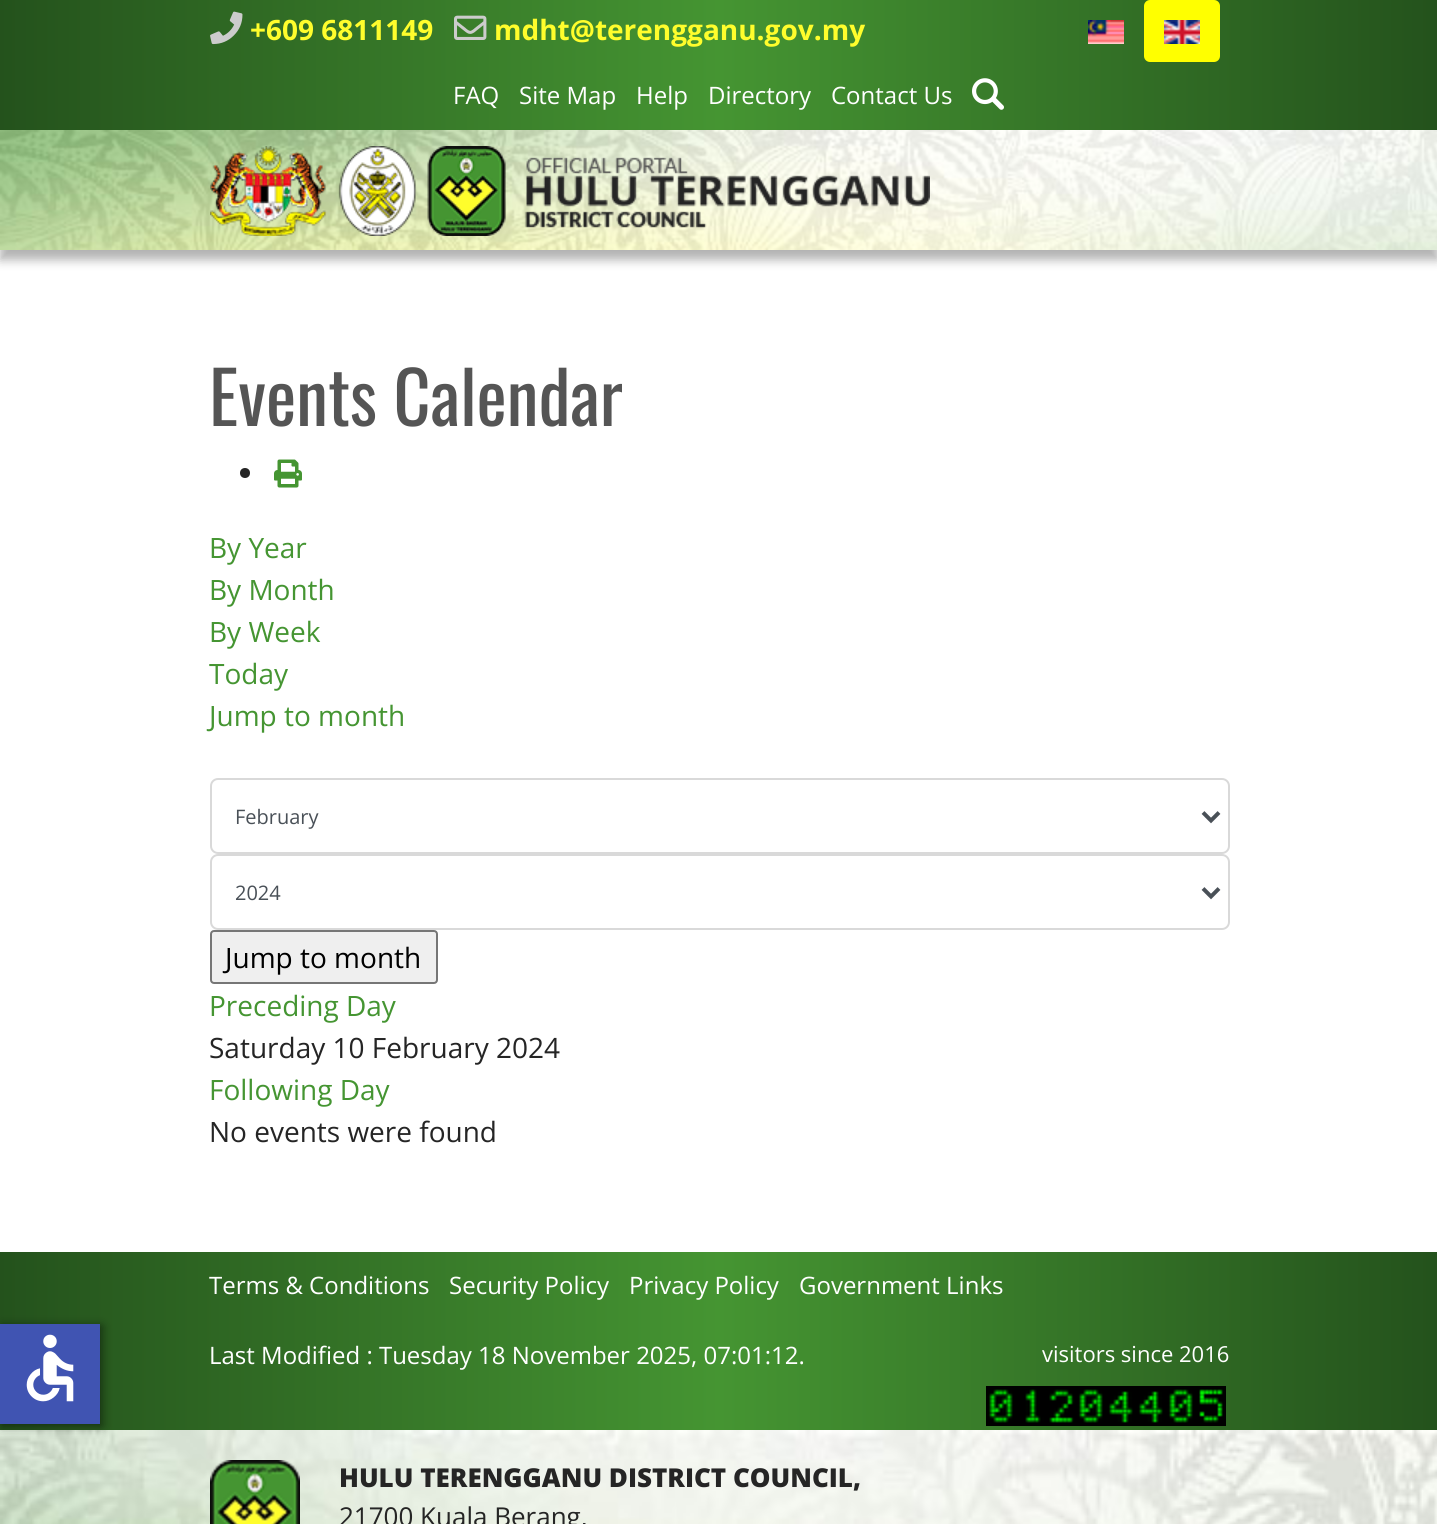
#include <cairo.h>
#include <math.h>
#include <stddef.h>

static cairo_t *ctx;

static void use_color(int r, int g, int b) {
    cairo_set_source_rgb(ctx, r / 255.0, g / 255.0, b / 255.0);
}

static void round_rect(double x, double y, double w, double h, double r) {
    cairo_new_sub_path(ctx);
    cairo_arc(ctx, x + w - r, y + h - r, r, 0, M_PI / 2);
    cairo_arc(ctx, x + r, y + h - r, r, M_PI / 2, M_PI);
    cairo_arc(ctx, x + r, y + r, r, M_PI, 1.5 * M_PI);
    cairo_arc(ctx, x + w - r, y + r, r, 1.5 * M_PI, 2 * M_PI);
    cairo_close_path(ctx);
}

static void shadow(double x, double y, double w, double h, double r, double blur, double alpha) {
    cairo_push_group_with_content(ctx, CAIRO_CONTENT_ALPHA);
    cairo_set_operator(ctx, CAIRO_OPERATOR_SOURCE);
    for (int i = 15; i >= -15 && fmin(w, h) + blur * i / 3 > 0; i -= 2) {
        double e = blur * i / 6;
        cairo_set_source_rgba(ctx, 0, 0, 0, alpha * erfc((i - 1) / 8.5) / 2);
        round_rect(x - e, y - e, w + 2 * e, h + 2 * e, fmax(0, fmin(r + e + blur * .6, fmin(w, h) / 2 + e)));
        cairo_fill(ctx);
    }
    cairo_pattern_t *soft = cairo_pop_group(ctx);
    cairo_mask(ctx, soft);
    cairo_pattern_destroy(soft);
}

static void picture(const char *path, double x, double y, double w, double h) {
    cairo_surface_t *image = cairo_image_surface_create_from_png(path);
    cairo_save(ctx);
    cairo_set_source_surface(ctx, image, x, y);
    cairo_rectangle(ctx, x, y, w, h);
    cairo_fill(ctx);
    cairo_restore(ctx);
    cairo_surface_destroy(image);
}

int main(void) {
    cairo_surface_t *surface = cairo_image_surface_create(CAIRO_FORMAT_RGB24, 1437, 1524);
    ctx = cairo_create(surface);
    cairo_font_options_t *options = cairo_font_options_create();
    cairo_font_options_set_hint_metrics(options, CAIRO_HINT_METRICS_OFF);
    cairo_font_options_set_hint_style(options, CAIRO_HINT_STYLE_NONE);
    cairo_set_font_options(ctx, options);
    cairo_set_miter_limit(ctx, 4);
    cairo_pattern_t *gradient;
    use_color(255, 255, 255);
    cairo_paint(ctx);
    gradient = cairo_pattern_create_linear(0, 1341, 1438, 1341);
    cairo_pattern_add_color_stop_rgba(gradient, 0, 0.141, 0.322, 0.11, 1);
    cairo_pattern_add_color_stop_rgba(gradient, 0.5, 0.271, 0.584, 0.196, 1);
    cairo_pattern_add_color_stop_rgba(gradient, 1, 0.141, 0.322, 0.11, 1);
    cairo_set_source(ctx, gradient);
    cairo_pattern_destroy(gradient);
    cairo_rectangle(ctx, 0, 1252, 1437, 178);
    cairo_fill(ctx);
    picture("img15.png", 0, 1430, 1437, 94);
    use_color(0, 0, 0);
    shadow(2, 1326, 100, 100, 0, 5, 0.5);
    use_color(64, 84, 178);
    cairo_rectangle(ctx, 0, 1324, 100, 100);
    cairo_fill(ctx);
    picture("img1.png", 26, 1334, 48, 68);
    gradient = cairo_pattern_create_linear(0, 65, 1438, 65);
    cairo_pattern_add_color_stop_rgba(gradient, 0, 0.141, 0.322, 0.11, 1);
    cairo_pattern_add_color_stop_rgba(gradient, 0.5, 0.271, 0.584, 0.196, 1);
    cairo_pattern_add_color_stop_rgba(gradient, 1, 0.141, 0.322, 0.11, 1);
    cairo_set_source(ctx, gradient);
    cairo_pattern_destroy(gradient);
    cairo_rectangle(ctx, 0, 0, 1437, 130);
    cairo_fill(ctx);
    picture("img2.png", 210, 11, 33, 34);
    cairo_select_font_face(ctx, "Open Sans", CAIRO_FONT_SLANT_NORMAL, CAIRO_FONT_WEIGHT_BOLD);
    cairo_set_font_size(ctx, 28);
    use_color(255, 253, 44);
    cairo_move_to(ctx, 250, 40);
    cairo_show_text(ctx, "+609 6811149");
    picture("img3.png", 454, 15, 33, 25);
    cairo_move_to(ctx, 494, 40);
    cairo_show_text(ctx, "mdht@terengganu.gov.my");
    picture("img4.png", 1088, 20, 36, 24);
    use_color(255, 255, 0);
    round_rect(1144, 0, 76, 62, 6);
    cairo_fill(ctx);
    picture("img5.png", 1164, 20, 36, 24);
    cairo_select_font_face(ctx, "Open Sans", CAIRO_FONT_SLANT_NORMAL, CAIRO_FONT_WEIGHT_NORMAL);
    cairo_set_font_size(ctx, 24);
    use_color(255, 255, 255);
    cairo_move_to(ctx, 453, 104);
    cairo_show_text(ctx, "FAQ");
    cairo_move_to(ctx, 519, 104);
    cairo_show_text(ctx, "Site Map");
    cairo_move_to(ctx, 636, 104);
    cairo_show_text(ctx, "Help");
    cairo_move_to(ctx, 708, 104);
    cairo_show_text(ctx, "Directory");
    cairo_move_to(ctx, 831, 104);
    cairo_show_text(ctx, "Contact Us");
    picture("img6.png", 972, 78, 32, 32);
    use_color(0, 0, 0);
    shadow(0, 140, 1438, 120, 0, 5, 0.3);
    picture("img7.png", 0, 130, 1437, 120);
    picture("img8.png", 210, 146, 720, 90);
    cairo_select_font_face(ctx, "Oswald", CAIRO_FONT_SLANT_NORMAL, CAIRO_FONT_WEIGHT_NORMAL);
    cairo_set_font_size(ctx, 72);
    use_color(85, 85, 85);
    cairo_move_to(ctx, 209, 426);
    cairo_show_text(ctx, "Events Calendar");
    use_color(37, 37, 37);
    cairo_new_path(ctx);
    cairo_arc(ctx, 245, 473, 5, 0, 2 * M_PI);
    cairo_fill(ctx);
    picture("img9.png", 274, 459, 28, 29);
    cairo_select_font_face(ctx, "Open Sans", CAIRO_FONT_SLANT_NORMAL, CAIRO_FONT_WEIGHT_NORMAL);
    cairo_set_font_size(ctx, 28);
    use_color(69, 149, 50);
    cairo_move_to(ctx, 209, 558);
    cairo_show_text(ctx, "By Year");
    cairo_move_to(ctx, 209, 600);
    cairo_show_text(ctx, "By Month");
    cairo_move_to(ctx, 209, 642);
    cairo_show_text(ctx, "By Week");
    cairo_move_to(ctx, 209, 684);
    cairo_show_text(ctx, "Today");
    cairo_move_to(ctx, 209, 726);
    cairo_show_text(ctx, "Jump to month");
    round_rect(211, 779, 1018, 74, 7);
    use_color(217, 217, 217);
    cairo_stroke(ctx);
    cairo_new_path(ctx);
    cairo_move_to(ctx, 1203, 812.5);
    cairo_line_to(ctx, 1211, 820.5);
    cairo_line_to(ctx, 1219, 812.5);
    use_color(73, 80, 87);
    cairo_set_line_width(ctx, 4);
    cairo_stroke(ctx);
    cairo_set_font_size(ctx, 20);
    cairo_move_to(ctx, 235, 824);
    cairo_show_text(ctx, "February");
    round_rect(211, 855, 1018, 74, 7);
    use_color(217, 217, 217);
    cairo_set_line_width(ctx, 2);
    cairo_stroke(ctx);
    cairo_new_path(ctx);
    cairo_move_to(ctx, 1203, 888.5);
    cairo_line_to(ctx, 1211, 896.5);
    cairo_line_to(ctx, 1219, 888.5);
    use_color(73, 80, 87);
    cairo_set_line_width(ctx, 4);
    cairo_stroke(ctx);
    cairo_move_to(ctx, 235, 900);
    cairo_show_text(ctx, "2024");
    use_color(239, 239, 239);
    round_rect(211, 931, 226, 52, 3);
    cairo_fill_preserve(ctx);
    use_color(118, 118, 118);
    cairo_set_line_width(ctx, 2);
    cairo_stroke(ctx);
    cairo_set_font_size(ctx, 28);
    use_color(0, 0, 0);
    cairo_move_to(ctx, 225, 968);
    cairo_show_text(ctx, "Jump to month");
    use_color(69, 149, 50);
    cairo_move_to(ctx, 209, 1016);
    cairo_show_text(ctx, "Preceding Day");
    use_color(37, 37, 37);
    cairo_move_to(ctx, 209, 1058);
    cairo_show_text(ctx, "Saturday 10 February 2024");
    use_color(69, 149, 50);
    cairo_move_to(ctx, 209, 1100);
    cairo_show_text(ctx, "Following Day");
    use_color(37, 37, 37);
    cairo_move_to(ctx, 209, 1142);
    cairo_show_text(ctx, "No events were found");
    cairo_set_font_size(ctx, 24);
    use_color(255, 255, 255);
    cairo_move_to(ctx, 209, 1294);
    cairo_show_text(ctx, "Terms & Conditions");
    cairo_move_to(ctx, 449, 1294);
    cairo_show_text(ctx, "Security Policy");
    cairo_move_to(ctx, 629, 1294);
    cairo_show_text(ctx, "Privacy Policy");
    cairo_move_to(ctx, 799, 1294);
    cairo_show_text(ctx, "Government Links");
    cairo_move_to(ctx, 209, 1364);
    cairo_show_text(ctx, "Last Modified : Tuesday 18 November 2025, 07:01:12.");
    cairo_set_font_size(ctx, 22);
    cairo_move_to(ctx, 1042, 1362);
    cairo_show_text(ctx, "visitors since 2016");
    picture("img10.png", 986, 1386, 30, 40);
    picture("img11.png", 1016, 1386, 30, 40);
    picture("img12.png", 1046, 1386, 30, 40);
    picture("img10.png", 1076, 1386, 30, 40);
    picture("img13.png", 1106, 1386, 30, 40);
    picture("img13.png", 1136, 1386, 30, 40);
    picture("img10.png", 1166, 1386, 30, 40);
    picture("img14.png", 1196, 1386, 30, 40);
    picture("img16.png", 210, 1460, 90, 64);
    cairo_select_font_face(ctx, "Open Sans ExtraBold", CAIRO_FONT_SLANT_NORMAL, CAIRO_FONT_WEIGHT_NORMAL);
    cairo_set_font_size(ctx, 26);
    use_color(37, 37, 37);
    cairo_move_to(ctx, 339, 1487);
    cairo_show_text(ctx, "HULU TERENGGANU DISTRICT COUNCIL,");
    cairo_select_font_face(ctx, "Open Sans", CAIRO_FONT_SLANT_NORMAL, CAIRO_FONT_WEIGHT_NORMAL);
    cairo_move_to(ctx, 339, 1526);
    cairo_show_text(ctx, "21700 Kuala Berang,");
    cairo_surface_write_to_png(surface, "result.png");
    cairo_font_options_destroy(options);
    cairo_destroy(ctx);
    cairo_surface_destroy(surface);
    return 0;
}
